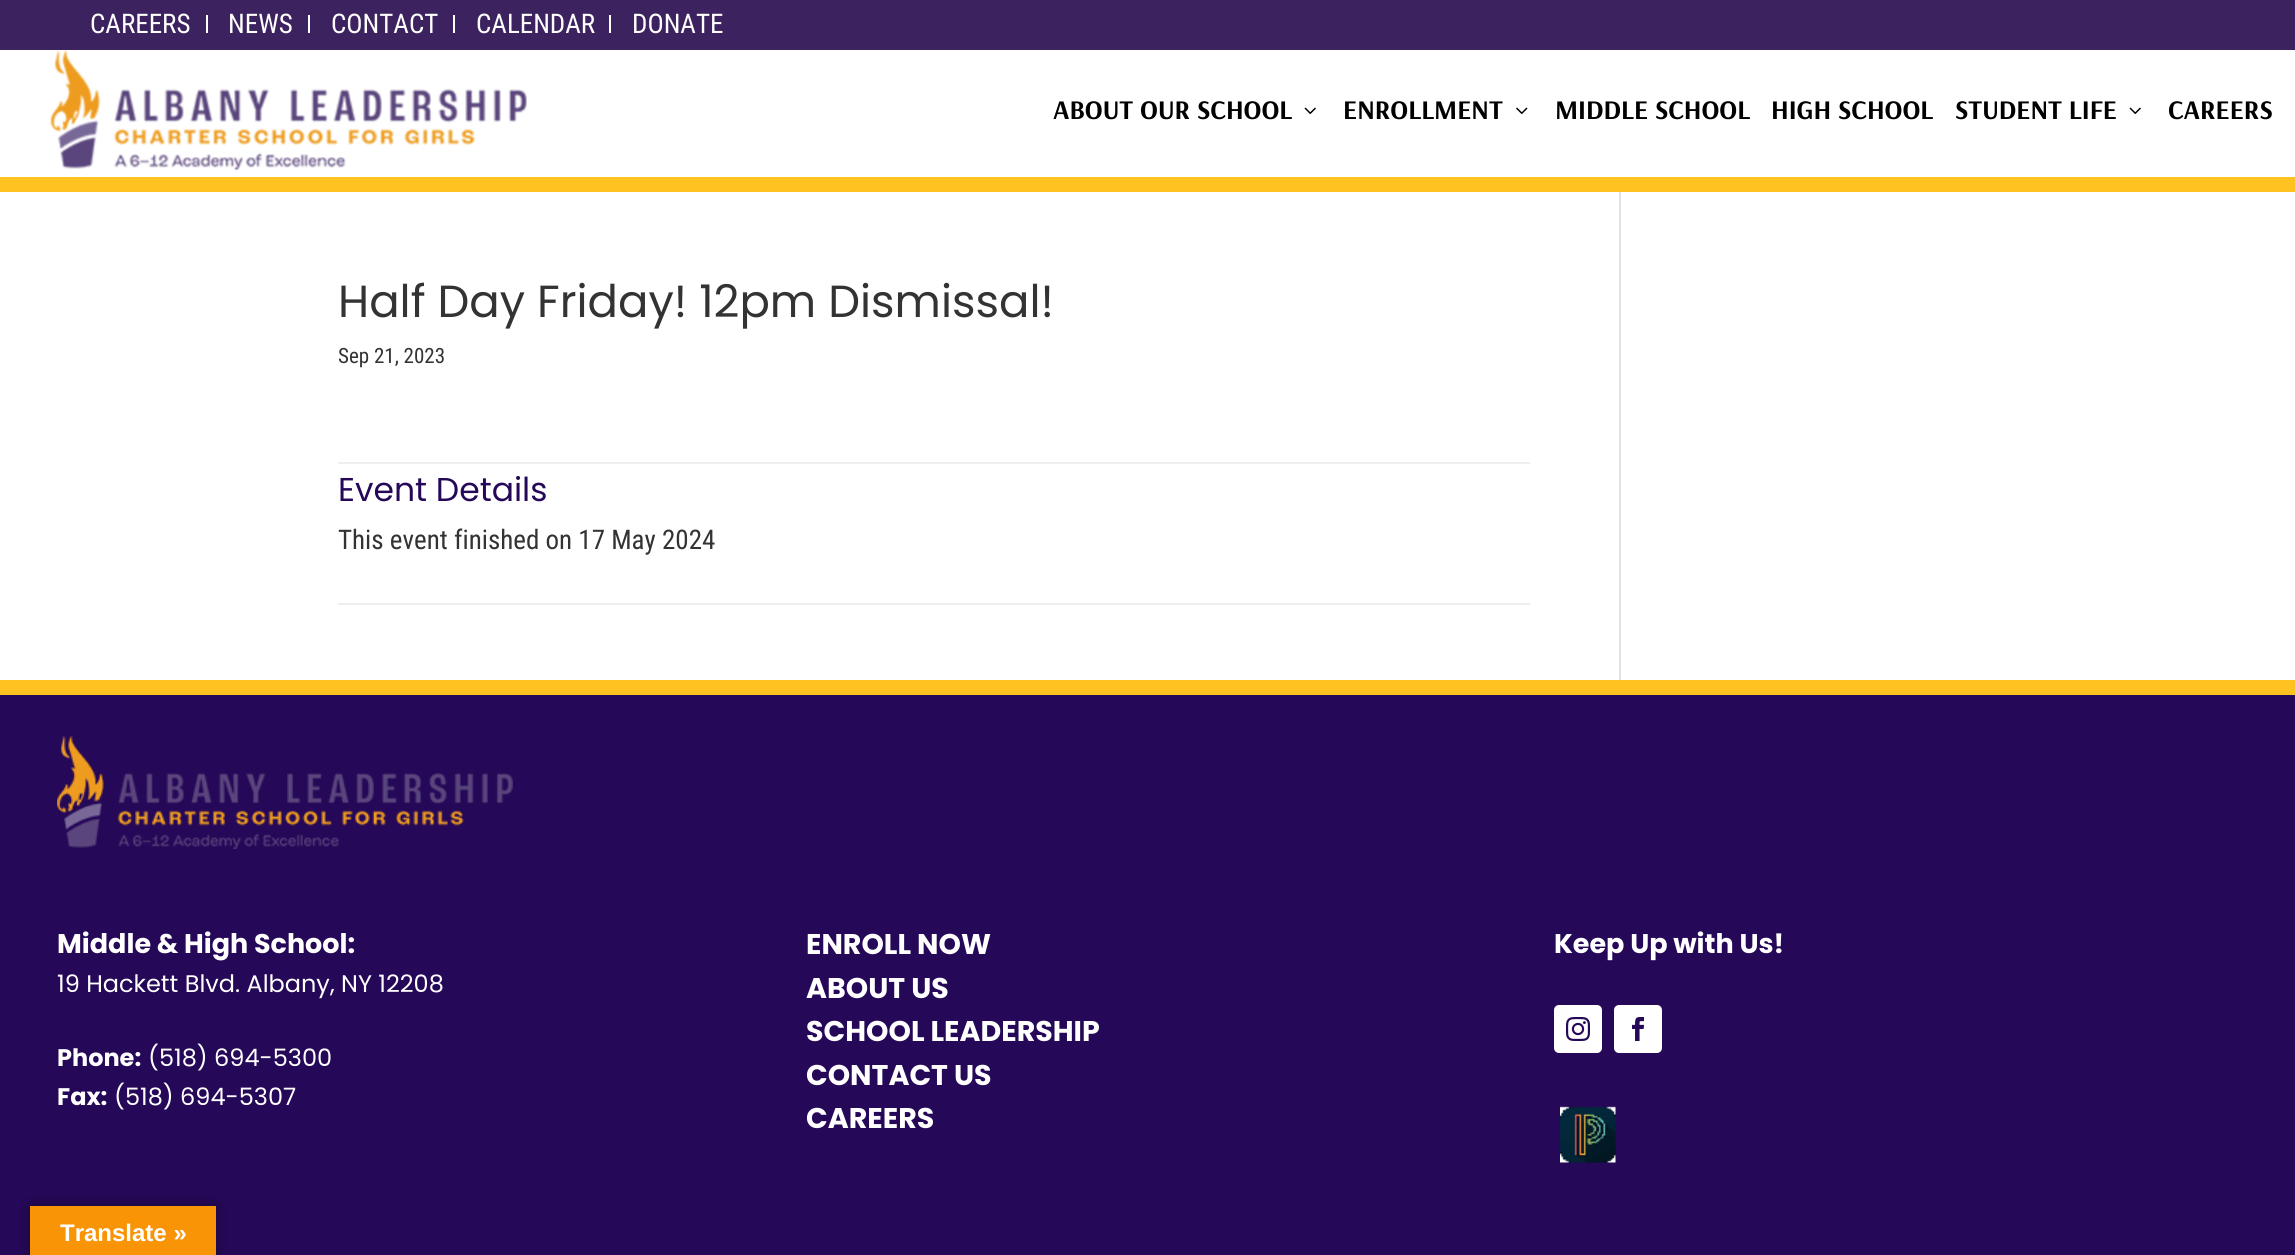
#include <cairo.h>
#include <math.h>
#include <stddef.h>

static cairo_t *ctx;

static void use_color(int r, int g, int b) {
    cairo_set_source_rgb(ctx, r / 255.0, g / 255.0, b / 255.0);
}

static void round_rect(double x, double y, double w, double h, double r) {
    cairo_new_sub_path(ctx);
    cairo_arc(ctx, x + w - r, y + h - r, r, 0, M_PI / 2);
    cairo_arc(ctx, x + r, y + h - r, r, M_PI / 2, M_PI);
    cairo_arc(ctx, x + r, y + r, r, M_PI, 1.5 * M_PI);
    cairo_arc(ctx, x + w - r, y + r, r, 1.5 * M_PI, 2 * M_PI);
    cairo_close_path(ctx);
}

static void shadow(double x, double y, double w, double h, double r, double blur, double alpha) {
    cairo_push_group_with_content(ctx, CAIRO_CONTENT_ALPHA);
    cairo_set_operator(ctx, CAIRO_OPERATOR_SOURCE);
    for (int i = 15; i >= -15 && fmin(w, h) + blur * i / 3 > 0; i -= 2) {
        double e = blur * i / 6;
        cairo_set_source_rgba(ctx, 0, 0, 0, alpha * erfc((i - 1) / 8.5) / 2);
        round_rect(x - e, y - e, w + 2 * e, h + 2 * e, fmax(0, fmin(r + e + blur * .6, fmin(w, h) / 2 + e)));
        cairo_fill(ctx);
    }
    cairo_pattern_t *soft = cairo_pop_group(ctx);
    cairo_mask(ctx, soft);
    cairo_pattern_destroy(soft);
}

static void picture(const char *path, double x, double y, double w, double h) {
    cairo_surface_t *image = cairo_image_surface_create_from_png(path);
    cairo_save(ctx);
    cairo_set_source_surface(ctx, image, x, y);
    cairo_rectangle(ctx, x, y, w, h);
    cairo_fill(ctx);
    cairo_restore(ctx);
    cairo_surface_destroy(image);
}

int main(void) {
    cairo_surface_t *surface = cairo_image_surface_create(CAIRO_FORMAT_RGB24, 2295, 1255);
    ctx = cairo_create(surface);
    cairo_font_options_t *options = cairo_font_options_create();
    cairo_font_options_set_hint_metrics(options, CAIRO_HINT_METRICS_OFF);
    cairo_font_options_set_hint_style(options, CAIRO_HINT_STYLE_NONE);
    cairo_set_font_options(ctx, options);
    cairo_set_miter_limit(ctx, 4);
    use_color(255, 255, 255);
    cairo_paint(ctx);
    use_color(60, 34, 94);
    cairo_rectangle(ctx, 0, 0, 2295, 50);
    cairo_fill(ctx);
    use_color(255, 255, 255);
    cairo_rectangle(ctx, 206, 15, 2, 18);
    cairo_fill(ctx);
    cairo_select_font_face(ctx, "Roboto Condensed", CAIRO_FONT_SLANT_NORMAL, CAIRO_FONT_WEIGHT_NORMAL);
    cairo_set_font_size(ctx, 27);
    cairo_move_to(ctx, 90, 33);
    cairo_show_text(ctx, "CAREERS");
    cairo_rectangle(ctx, 308, 15, 2, 18);
    cairo_fill(ctx);
    cairo_move_to(ctx, 228, 33);
    cairo_show_text(ctx, "NEWS");
    cairo_rectangle(ctx, 453, 15, 2, 18);
    cairo_fill(ctx);
    cairo_move_to(ctx, 331, 33);
    cairo_show_text(ctx, "CONTACT");
    cairo_rectangle(ctx, 609, 15, 2, 18);
    cairo_fill(ctx);
    cairo_move_to(ctx, 476, 33);
    cairo_show_text(ctx, "CALENDAR");
    cairo_move_to(ctx, 632, 33);
    cairo_show_text(ctx, "DONATE");
    use_color(255, 194, 32);
    cairo_rectangle(ctx, 0, 177, 2295, 15);
    cairo_fill(ctx);
    picture("img1.png", 50, 49, 477, 121);
    cairo_select_font_face(ctx, "Arsenal", CAIRO_FONT_SLANT_NORMAL, CAIRO_FONT_WEIGHT_BOLD);
    use_color(0, 0, 0);
    cairo_move_to(ctx, 1053, 119);
    cairo_show_text(ctx, "ABOUT OUR SCHOOL");
    picture("img2.png", 1304, 107, 12, 7);
    cairo_move_to(ctx, 1343, 119);
    cairo_show_text(ctx, "ENROLLMENT");
    picture("img3.png", 1516, 107, 12, 7);
    cairo_move_to(ctx, 1555, 119);
    cairo_show_text(ctx, "MIDDLE SCHOOL");
    cairo_move_to(ctx, 1771, 119);
    cairo_show_text(ctx, "HIGH SCHOOL");
    cairo_move_to(ctx, 1955, 119);
    cairo_show_text(ctx, "STUDENT LIFE");
    picture("img2.png", 2129, 107, 12, 7);
    cairo_move_to(ctx, 2168, 119);
    cairo_show_text(ctx, "CAREERS");
    cairo_select_font_face(ctx, "Poppins", CAIRO_FONT_SLANT_NORMAL, CAIRO_FONT_WEIGHT_NORMAL);
    cairo_set_font_size(ctx, 45);
    use_color(51, 51, 51);
    cairo_move_to(ctx, 338, 317);
    cairo_show_text(ctx, "Half Day Friday! 12pm Dismissal!");
    cairo_select_font_face(ctx, "Roboto Condensed", CAIRO_FONT_SLANT_NORMAL, CAIRO_FONT_WEIGHT_NORMAL);
    cairo_set_font_size(ctx, 21);
    cairo_move_to(ctx, 338, 363);
    cairo_show_text(ctx, "Sep 21, 2023");
    use_color(238, 238, 238);
    cairo_rectangle(ctx, 338, 462, 1192, 2);
    cairo_fill(ctx);
    cairo_select_font_face(ctx, "Poppins", CAIRO_FONT_SLANT_NORMAL, CAIRO_FONT_WEIGHT_NORMAL);
    cairo_set_font_size(ctx, 33);
    use_color(37, 8, 88);
    cairo_move_to(ctx, 338, 501);
    cairo_show_text(ctx, "Event Details");
    cairo_select_font_face(ctx, "Roboto Condensed", CAIRO_FONT_SLANT_NORMAL, CAIRO_FONT_WEIGHT_NORMAL);
    cairo_set_font_size(ctx, 27);
    use_color(51, 51, 51);
    cairo_move_to(ctx, 338, 549);
    cairo_show_text(ctx, "This event finished on 17 May 2024");
    use_color(238, 238, 238);
    cairo_rectangle(ctx, 338, 603, 1192, 2);
    cairo_fill(ctx);
    use_color(226, 226, 226);
    cairo_rectangle(ctx, 1619, 192, 2, 488);
    cairo_fill(ctx);
    use_color(37, 8, 88);
    cairo_rectangle(ctx, 0, 695, 2295, 560);
    cairo_fill(ctx);
    use_color(255, 194, 32);
    cairo_rectangle(ctx, 0, 680, 2295, 15);
    cairo_fill(ctx);
    picture("img4.png", 57, 735, 456, 114);
    cairo_select_font_face(ctx, "Poppins", CAIRO_FONT_SLANT_NORMAL, CAIRO_FONT_WEIGHT_BOLD);
    use_color(255, 255, 255);
    cairo_move_to(ctx, 57, 953);
    cairo_show_text(ctx, "Middle & High School:");
    cairo_select_font_face(ctx, "Poppins", CAIRO_FONT_SLANT_NORMAL, CAIRO_FONT_WEIGHT_NORMAL);
    cairo_set_font_size(ctx, 24);
    cairo_move_to(ctx, 57, 992);
    cairo_show_text(ctx, "19 Hackett Blvd. Albany, NY 12208");
    cairo_select_font_face(ctx, "Poppins", CAIRO_FONT_SLANT_NORMAL, CAIRO_FONT_WEIGHT_BOLD);
    cairo_move_to(ctx, 57, 1066);
    cairo_show_text(ctx, "Phone:");
    cairo_select_font_face(ctx, "Poppins", CAIRO_FONT_SLANT_NORMAL, CAIRO_FONT_WEIGHT_NORMAL);
    cairo_move_to(ctx, 148, 1066);
    cairo_show_text(ctx, "(518) 694-5300");
    cairo_select_font_face(ctx, "Poppins", CAIRO_FONT_SLANT_NORMAL, CAIRO_FONT_WEIGHT_BOLD);
    cairo_move_to(ctx, 57, 1105);
    cairo_show_text(ctx, "Fax:");
    cairo_select_font_face(ctx, "Poppins", CAIRO_FONT_SLANT_NORMAL, CAIRO_FONT_WEIGHT_NORMAL);
    cairo_move_to(ctx, 114, 1105);
    cairo_show_text(ctx, "(518) 694-5307");
    cairo_select_font_face(ctx, "Poppins", CAIRO_FONT_SLANT_NORMAL, CAIRO_FONT_WEIGHT_BOLD);
    cairo_set_font_size(ctx, 28.5);
    cairo_move_to(ctx, 806, 954);
    cairo_show_text(ctx, "ENROLL NOW");
    cairo_move_to(ctx, 806, 998);
    cairo_show_text(ctx, "ABOUT US");
    cairo_move_to(ctx, 806, 1041);
    cairo_show_text(ctx, "SCHOOL LEADERSHIP");
    cairo_move_to(ctx, 806, 1085);
    cairo_show_text(ctx, "CONTACT US");
    cairo_move_to(ctx, 806, 1128);
    cairo_show_text(ctx, "CAREERS");
    cairo_set_font_size(ctx, 27);
    cairo_move_to(ctx, 1554, 953);
    cairo_show_text(ctx, "Keep Up with Us!");
    round_rect(1554, 1005, 48, 48, 5);
    cairo_fill(ctx);
    picture("img5.png", 1566, 1017, 24, 24);
    round_rect(1614, 1005, 48, 48, 5);
    cairo_fill(ctx);
    picture("img6.png", 1632, 1017, 13, 24);
    picture("img7.png", 1560, 1106, 56, 57);
    use_color(0, 0, 0);
    shadow(30, 1206, 186, 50, 0, 7, 0.3);
    use_color(248, 148, 6);
    cairo_rectangle(ctx, 30, 1206, 186, 49);
    cairo_fill(ctx);
    cairo_select_font_face(ctx, "Liberation Sans", CAIRO_FONT_SLANT_NORMAL, CAIRO_FONT_WEIGHT_BOLD);
    cairo_set_font_size(ctx, 24);
    use_color(255, 255, 255);
    cairo_move_to(ctx, 60, 1241);
    cairo_show_text(ctx, "Translate »");
    cairo_surface_write_to_png(surface, "result.png");
    cairo_font_options_destroy(options);
    cairo_destroy(ctx);
    cairo_surface_destroy(surface);
    return 0;
}
